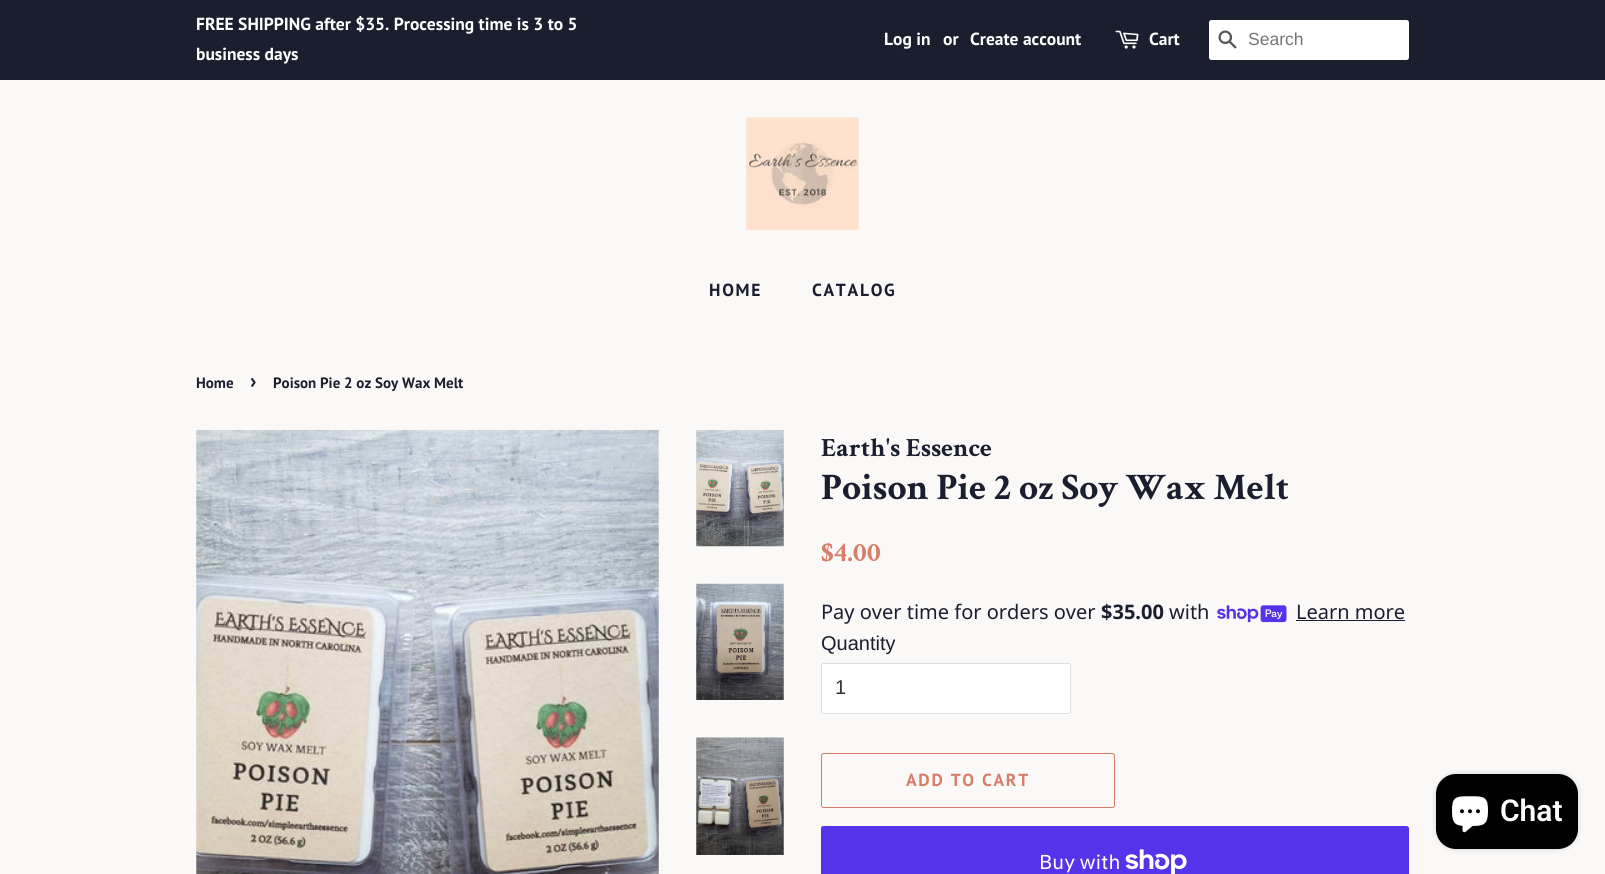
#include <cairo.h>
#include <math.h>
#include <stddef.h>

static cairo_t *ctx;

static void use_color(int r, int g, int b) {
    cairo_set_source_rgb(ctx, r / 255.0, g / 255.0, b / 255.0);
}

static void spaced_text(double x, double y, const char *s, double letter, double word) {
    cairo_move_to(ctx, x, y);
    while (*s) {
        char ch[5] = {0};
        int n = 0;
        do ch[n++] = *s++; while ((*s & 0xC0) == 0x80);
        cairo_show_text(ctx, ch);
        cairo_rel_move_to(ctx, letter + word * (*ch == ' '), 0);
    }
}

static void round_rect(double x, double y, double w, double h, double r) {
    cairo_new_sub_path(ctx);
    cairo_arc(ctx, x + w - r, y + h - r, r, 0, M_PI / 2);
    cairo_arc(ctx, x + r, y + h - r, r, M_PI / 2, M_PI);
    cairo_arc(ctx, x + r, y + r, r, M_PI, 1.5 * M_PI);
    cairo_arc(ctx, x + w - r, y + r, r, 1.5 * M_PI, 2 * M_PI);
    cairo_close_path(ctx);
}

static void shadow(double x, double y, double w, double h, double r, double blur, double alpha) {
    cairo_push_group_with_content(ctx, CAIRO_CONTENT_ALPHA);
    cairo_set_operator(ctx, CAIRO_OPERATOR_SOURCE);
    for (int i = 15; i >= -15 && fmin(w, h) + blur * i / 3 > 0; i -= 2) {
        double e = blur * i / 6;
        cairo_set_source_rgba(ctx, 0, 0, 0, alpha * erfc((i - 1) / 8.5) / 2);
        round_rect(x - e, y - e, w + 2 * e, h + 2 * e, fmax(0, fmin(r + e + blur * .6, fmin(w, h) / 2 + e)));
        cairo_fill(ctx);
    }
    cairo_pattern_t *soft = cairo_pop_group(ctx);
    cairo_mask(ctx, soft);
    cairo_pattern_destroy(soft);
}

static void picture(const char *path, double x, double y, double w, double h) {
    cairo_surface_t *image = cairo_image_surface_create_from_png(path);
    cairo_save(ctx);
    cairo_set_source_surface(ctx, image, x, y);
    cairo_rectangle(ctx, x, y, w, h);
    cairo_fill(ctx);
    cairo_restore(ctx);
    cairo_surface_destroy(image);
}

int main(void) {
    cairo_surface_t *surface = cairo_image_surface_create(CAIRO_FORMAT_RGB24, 1605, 874);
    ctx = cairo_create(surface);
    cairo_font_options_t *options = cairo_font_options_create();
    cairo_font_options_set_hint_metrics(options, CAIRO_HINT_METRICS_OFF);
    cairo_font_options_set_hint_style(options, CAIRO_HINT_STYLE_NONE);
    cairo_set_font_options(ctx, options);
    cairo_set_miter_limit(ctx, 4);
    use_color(250, 249, 247);
    cairo_paint(ctx);
    use_color(27, 30, 47);
    cairo_rectangle(ctx, 0, 0, 1605, 80);
    cairo_fill(ctx);
    cairo_select_font_face(ctx, "PT Sans", CAIRO_FONT_SLANT_NORMAL, CAIRO_FONT_WEIGHT_BOLD);
    cairo_set_font_size(ctx, 17.5);
    use_color(255, 255, 255);
    cairo_move_to(ctx, 196, 30);
    cairo_show_text(ctx, "FREE SHIPPING after $35. Processing time is 3 to 5");
    cairo_move_to(ctx, 196, 60);
    cairo_show_text(ctx, "business days");
    cairo_move_to(ctx, 884, 45);
    cairo_show_text(ctx, "Log in");
    cairo_move_to(ctx, 943, 45);
    cairo_show_text(ctx, "or");
    cairo_move_to(ctx, 970, 45);
    cairo_show_text(ctx, "Create account");
    picture("img1.png", 1115, 30, 24, 19);
    cairo_move_to(ctx, 1149, 45);
    cairo_show_text(ctx, "Cart");
    round_rect(1209, 20, 200, 40, 2.5);
    cairo_fill(ctx);
    picture("img2.png", 1218, 30, 19, 19);
    cairo_select_font_face(ctx, "Liberation Sans", CAIRO_FONT_SLANT_NORMAL, CAIRO_FONT_WEIGHT_NORMAL);
    use_color(117, 117, 117);
    cairo_move_to(ctx, 1248, 45);
    cairo_show_text(ctx, "Search");
    picture("img3.png", 746, 117, 113, 113);
    cairo_select_font_face(ctx, "PT Sans", CAIRO_FONT_SLANT_NORMAL, CAIRO_FONT_WEIGHT_BOLD);
    use_color(27, 30, 47);
    spaced_text(709, 296, "HOME", 1.75, 0);
    spaced_text(812, 296, "CATALOG", 1.75, 0);
    cairo_set_font_size(ctx, 15);
    cairo_move_to(ctx, 196, 388);
    cairo_show_text(ctx, "Home");
    cairo_set_font_size(ctx, 21);
    cairo_move_to(ctx, 250, 388);
    cairo_show_text(ctx, "›");
    cairo_set_font_size(ctx, 15);
    cairo_move_to(ctx, 273, 388);
    cairo_show_text(ctx, "Poison Pie 2 oz Soy Wax Melt");
    picture("img4.png", 196, 430, 463, 444);
    picture("img5.png", 696, 430, 88, 117);
    picture("img6.png", 696, 583, 88, 117);
    picture("img7.png", 696, 737, 88, 118);
    cairo_select_font_face(ctx, "Crimson Text", CAIRO_FONT_SLANT_NORMAL, CAIRO_FONT_WEIGHT_BOLD);
    cairo_set_font_size(ctx, 26.25);
    cairo_move_to(ctx, 821, 456);
    cairo_show_text(ctx, "Earth's Essence");
    cairo_set_font_size(ctx, 37.5);
    cairo_move_to(ctx, 821, 499);
    cairo_show_text(ctx, "Poison Pie 2 oz Soy Wax Melt");
    cairo_set_font_size(ctx, 28);
    use_color(215, 126, 106);
    cairo_move_to(ctx, 821, 561);
    cairo_show_text(ctx, "$4.00");
    cairo_select_font_face(ctx, "Noto Sans", CAIRO_FONT_SLANT_NORMAL, CAIRO_FONT_WEIGHT_NORMAL);
    cairo_set_font_size(ctx, 20);
    use_color(27, 30, 47);
    cairo_move_to(ctx, 821, 619);
    cairo_show_text(ctx, "Pay over time for orders over");
    cairo_select_font_face(ctx, "Noto Sans", CAIRO_FONT_SLANT_NORMAL, CAIRO_FONT_WEIGHT_BOLD);
    cairo_move_to(ctx, 1101, 619);
    cairo_show_text(ctx, "$35.00");
    cairo_select_font_face(ctx, "Noto Sans", CAIRO_FONT_SLANT_NORMAL, CAIRO_FONT_WEIGHT_NORMAL);
    cairo_move_to(ctx, 1169, 619);
    cairo_show_text(ctx, "with");
    picture("img8.png", 1217, 605, 70, 18);
    cairo_move_to(ctx, 1296, 619);
    cairo_show_text(ctx, "Learn more");
    cairo_rectangle(ctx, 1296, 620, 109, 1);
    cairo_fill(ctx);
    cairo_select_font_face(ctx, "Liberation Sans", CAIRO_FONT_SLANT_NORMAL, CAIRO_FONT_WEIGHT_NORMAL);
    cairo_move_to(ctx, 821, 650);
    cairo_show_text(ctx, "Quantity");
    use_color(255, 255, 255);
    round_rect(821.5, 663.5, 249, 50, 2);
    cairo_fill_preserve(ctx);
    use_color(221, 221, 224);
    cairo_set_line_width(ctx, 1);
    cairo_stroke(ctx);
    use_color(51, 51, 51);
    cairo_move_to(ctx, 835, 694);
    cairo_show_text(ctx, "1");
    round_rect(821.5, 753.5, 293, 54, 2);
    use_color(215, 126, 106);
    cairo_stroke(ctx);
    cairo_select_font_face(ctx, "PT Sans", CAIRO_FONT_SLANT_NORMAL, CAIRO_FONT_WEIGHT_BOLD);
    cairo_set_font_size(ctx, 17.5);
    spaced_text(906, 786, "ADD TO CART", 1.75, 0);
    use_color(84, 51, 235);
    round_rect(821, 826, 588, 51, 2.5);
    cairo_fill(ctx);
    cairo_select_font_face(ctx, "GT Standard", CAIRO_FONT_SLANT_NORMAL, CAIRO_FONT_WEIGHT_NORMAL);
    cairo_set_font_size(ctx, 20);
    use_color(255, 255, 255);
    cairo_move_to(ctx, 1039, 869);
    cairo_show_text(ctx, "Buy with");
    picture("img9.png", 1125, 849, 62, 25);
    use_color(0, 0, 0);
    shadow(1436, 774, 142, 75, 20, 3, 0.15);
    use_color(0, 0, 0);
    round_rect(1436, 774, 142, 75, 20);
    cairo_fill(ctx);
    picture("img10.png", 1452, 796, 36, 37);
    cairo_select_font_face(ctx, "Roboto SemiBold", CAIRO_FONT_SLANT_NORMAL, CAIRO_FONT_WEIGHT_NORMAL);
    cairo_set_font_size(ctx, 30);
    use_color(255, 255, 255);
    cairo_move_to(ctx, 1500, 821);
    cairo_show_text(ctx, "Chat");
    cairo_surface_write_to_png(surface, "result.png");
    cairo_font_options_destroy(options);
    cairo_destroy(ctx);
    cairo_surface_destroy(surface);
    return 0;
}
